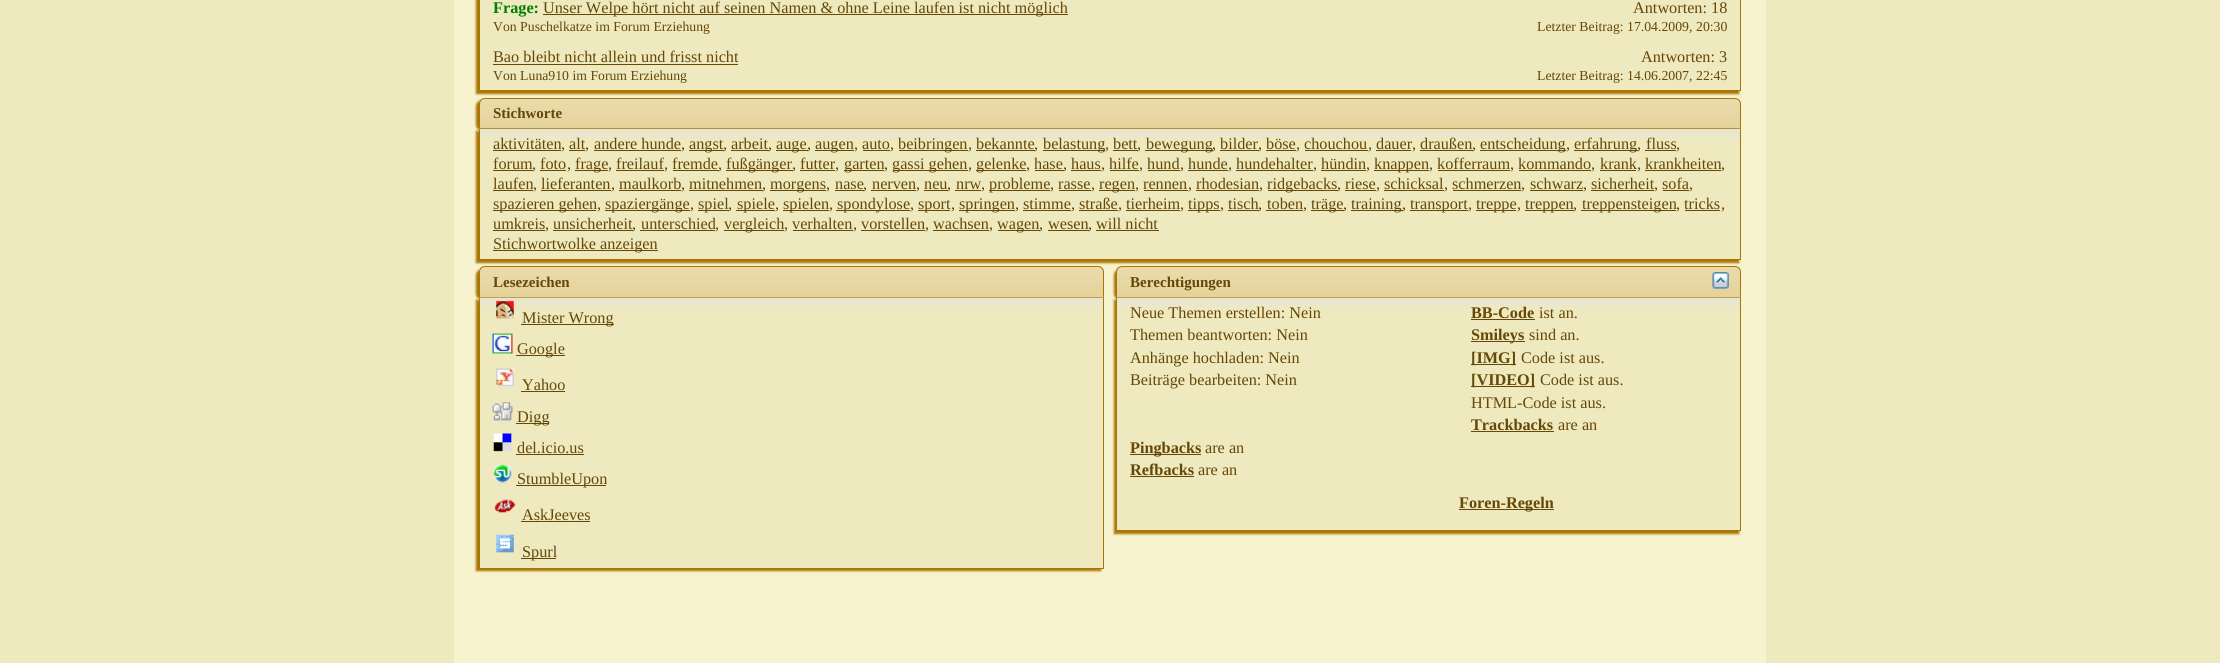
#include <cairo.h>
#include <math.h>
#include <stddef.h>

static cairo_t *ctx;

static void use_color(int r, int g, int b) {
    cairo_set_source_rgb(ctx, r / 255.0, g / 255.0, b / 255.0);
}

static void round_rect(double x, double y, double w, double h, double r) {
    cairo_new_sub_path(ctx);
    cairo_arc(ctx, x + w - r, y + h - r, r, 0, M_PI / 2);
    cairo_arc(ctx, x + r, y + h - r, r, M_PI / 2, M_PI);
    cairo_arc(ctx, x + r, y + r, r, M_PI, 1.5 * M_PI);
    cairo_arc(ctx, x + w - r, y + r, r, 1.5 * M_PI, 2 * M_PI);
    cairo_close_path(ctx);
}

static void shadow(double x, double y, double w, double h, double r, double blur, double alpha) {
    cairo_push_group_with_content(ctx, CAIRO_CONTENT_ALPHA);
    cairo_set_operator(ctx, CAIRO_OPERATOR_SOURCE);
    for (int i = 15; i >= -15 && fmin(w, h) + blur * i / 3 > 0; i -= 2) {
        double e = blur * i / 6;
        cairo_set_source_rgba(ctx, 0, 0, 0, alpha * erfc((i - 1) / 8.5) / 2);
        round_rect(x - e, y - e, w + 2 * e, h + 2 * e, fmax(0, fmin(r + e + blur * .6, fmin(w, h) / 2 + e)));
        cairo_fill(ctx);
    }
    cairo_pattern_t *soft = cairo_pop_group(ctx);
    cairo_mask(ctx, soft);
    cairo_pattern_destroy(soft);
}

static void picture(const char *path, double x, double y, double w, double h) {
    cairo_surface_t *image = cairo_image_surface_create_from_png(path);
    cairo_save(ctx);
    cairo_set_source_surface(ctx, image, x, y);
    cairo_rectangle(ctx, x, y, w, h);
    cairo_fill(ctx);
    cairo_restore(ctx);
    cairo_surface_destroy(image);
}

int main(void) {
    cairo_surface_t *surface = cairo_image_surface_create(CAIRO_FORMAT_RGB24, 2220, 663);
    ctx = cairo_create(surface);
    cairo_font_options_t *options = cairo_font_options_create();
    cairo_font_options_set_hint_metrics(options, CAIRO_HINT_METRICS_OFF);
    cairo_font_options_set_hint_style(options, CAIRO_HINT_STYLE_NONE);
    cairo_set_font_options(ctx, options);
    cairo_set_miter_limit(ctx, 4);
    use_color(239, 233, 191);
    cairo_paint(ctx);
    use_color(247, 243, 207);
    cairo_rectangle(ctx, 454, 0, 1312, 663);
    cairo_fill(ctx);
    use_color(169, 117, 4);
    shadow(476, -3, 1263, 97, 0, 1, 1);
    use_color(239, 233, 191);
    cairo_rectangle(ctx, 480, 0, 1260, 90);
    cairo_fill(ctx);
    use_color(169, 117, 4);
    cairo_rectangle(ctx, 1740, 0, 1, 91);
    cairo_fill(ctx);
    cairo_rectangle(ctx, 1737, 90, 4, 1);
    cairo_fill(ctx);
    cairo_select_font_face(ctx, "Liberation Serif", CAIRO_FONT_SLANT_NORMAL, CAIRO_FONT_WEIGHT_BOLD);
    cairo_set_font_size(ctx, 16.25);
    use_color(0, 128, 0);
    cairo_move_to(ctx, 493, 13);
    cairo_show_text(ctx, "Frage:");
    use_color(101, 71, 6);
    cairo_rectangle(ctx, 543, 14, 525, 1);
    cairo_fill(ctx);
    cairo_select_font_face(ctx, "Liberation Serif", CAIRO_FONT_SLANT_NORMAL, CAIRO_FONT_WEIGHT_NORMAL);
    cairo_move_to(ctx, 543, 13);
    cairo_show_text(ctx, "Unser Welpe hört nicht auf seinen Namen & ohne Leine laufen ist nicht möglich");
    cairo_set_font_size(ctx, 13.75);
    cairo_move_to(ctx, 493, 31);
    cairo_show_text(ctx, "Von Puschelkatze im Forum Erziehung");
    cairo_set_font_size(ctx, 16.25);
    cairo_move_to(ctx, 1633, 13);
    cairo_show_text(ctx, "Antworten:");
    cairo_move_to(ctx, 1711, 13);
    cairo_show_text(ctx, "18");
    cairo_set_font_size(ctx, 13.75);
    cairo_move_to(ctx, 1537, 31);
    cairo_show_text(ctx, "Letzter Beitrag:");
    cairo_move_to(ctx, 1627, 31);
    cairo_show_text(ctx, "17.04.2009,");
    cairo_move_to(ctx, 1696, 31);
    cairo_show_text(ctx, "20:30");
    cairo_set_font_size(ctx, 16.25);
    cairo_move_to(ctx, 493, 62);
    cairo_show_text(ctx, "Bao bleibt nicht allein und frisst nicht");
    cairo_rectangle(ctx, 493, 64, 245, 1);
    cairo_fill(ctx);
    cairo_set_font_size(ctx, 13.75);
    cairo_move_to(ctx, 493, 80);
    cairo_show_text(ctx, "Von Luna910 im Forum Erziehung");
    cairo_set_font_size(ctx, 16.25);
    cairo_move_to(ctx, 1641, 62);
    cairo_show_text(ctx, "Antworten:");
    cairo_move_to(ctx, 1719, 62);
    cairo_show_text(ctx, "3");
    cairo_set_font_size(ctx, 13.75);
    cairo_move_to(ctx, 1537, 80);
    cairo_show_text(ctx, "Letzter Beitrag:");
    cairo_move_to(ctx, 1627, 80);
    cairo_show_text(ctx, "14.06.2007,");
    cairo_move_to(ctx, 1696, 80);
    cairo_show_text(ctx, "22:45");
    use_color(169, 117, 4);
    shadow(476, 100, 1263, 31, 6, 1, 1);
    use_color(229, 211, 154);
    cairo_new_path(ctx);
    cairo_move_to(ctx, 485, 98);
    cairo_line_to(ctx, 1735, 98);
    cairo_curve_to(ctx, 1738.5, 98, 1741, 100.5, 1741, 104);
    cairo_line_to(ctx, 1741, 129);
    cairo_line_to(ctx, 479, 129);
    cairo_line_to(ctx, 479, 104);
    cairo_curve_to(ctx, 479, 100.5, 481.5, 98, 485, 98);
    cairo_close_path(ctx);
    cairo_fill(ctx);
    picture("img1.png", 479, 98, 1262, 24);
    cairo_new_path(ctx);
    cairo_move_to(ctx, 485, 98.5);
    cairo_line_to(ctx, 1735, 98.5);
    cairo_curve_to(ctx, 1738, 98.5, 1740.5, 101, 1740.5, 104);
    cairo_line_to(ctx, 1740.5, 128.5);
    cairo_line_to(ctx, 479.5, 128.5);
    cairo_line_to(ctx, 479.5, 104);
    cairo_curve_to(ctx, 479.5, 101, 482, 98.5, 485, 98.5);
    cairo_close_path(ctx);
    use_color(169, 117, 4);
    cairo_set_line_width(ctx, 1);
    cairo_stroke(ctx);
    cairo_select_font_face(ctx, "Liberation Serif", CAIRO_FONT_SLANT_NORMAL, CAIRO_FONT_WEIGHT_BOLD);
    cairo_set_font_size(ctx, 15);
    use_color(101, 71, 6);
    cairo_move_to(ctx, 493, 118);
    cairo_show_text(ctx, "Stichworte");
    use_color(169, 117, 4);
    shadow(476, 131, 1263, 132, 0, 1, 1);
    use_color(239, 233, 191);
    cairo_rectangle(ctx, 480, 129, 1260, 130);
    cairo_fill(ctx);
    picture("img2.png", 478, 128, 1263, 12);
    use_color(169, 117, 4);
    cairo_rectangle(ctx, 1740, 129, 1, 131);
    cairo_fill(ctx);
    cairo_rectangle(ctx, 1737, 259, 4, 1);
    cairo_fill(ctx);
    cairo_rectangle(ctx, 479, 129, 1, 11);
    cairo_fill(ctx);
    cairo_select_font_face(ctx, "Liberation Serif", CAIRO_FONT_SLANT_NORMAL, CAIRO_FONT_WEIGHT_NORMAL);
    cairo_set_font_size(ctx, 16.25);
    use_color(101, 71, 6);
    cairo_move_to(ctx, 493, 149);
    cairo_show_text(ctx, "aktivitäten");
    cairo_rectangle(ctx, 493, 150, 68, 1);
    cairo_fill(ctx);
    cairo_move_to(ctx, 561, 149);
    cairo_show_text(ctx, ",");
    cairo_move_to(ctx, 569, 149);
    cairo_show_text(ctx, "alt");
    cairo_rectangle(ctx, 569, 150, 16, 1);
    cairo_fill(ctx);
    cairo_move_to(ctx, 585, 149);
    cairo_show_text(ctx, ",");
    cairo_move_to(ctx, 594, 149);
    cairo_show_text(ctx, "andere hunde");
    cairo_rectangle(ctx, 594, 150, 87, 1);
    cairo_fill(ctx);
    cairo_move_to(ctx, 681, 149);
    cairo_show_text(ctx, ",");
    cairo_rectangle(ctx, 689, 150, 35, 1);
    cairo_fill(ctx);
    cairo_move_to(ctx, 689, 149);
    cairo_show_text(ctx, "angst");
    cairo_move_to(ctx, 723, 149);
    cairo_show_text(ctx, ",");
    cairo_move_to(ctx, 731, 149);
    cairo_show_text(ctx, "arbeit");
    cairo_rectangle(ctx, 731, 150, 38, 1);
    cairo_fill(ctx);
    cairo_move_to(ctx, 768, 149);
    cairo_show_text(ctx, ",");
    cairo_rectangle(ctx, 776, 150, 32, 1);
    cairo_fill(ctx);
    cairo_move_to(ctx, 776, 149);
    cairo_show_text(ctx, "auge");
    cairo_move_to(ctx, 807, 149);
    cairo_show_text(ctx, ",");
    cairo_rectangle(ctx, 815, 150, 39, 1);
    cairo_fill(ctx);
    cairo_move_to(ctx, 815, 149);
    cairo_show_text(ctx, "augen");
    cairo_move_to(ctx, 854, 149);
    cairo_show_text(ctx, ",");
    cairo_move_to(ctx, 862, 149);
    cairo_show_text(ctx, "auto");
    cairo_rectangle(ctx, 863, 150, 27, 1);
    cairo_fill(ctx);
    cairo_move_to(ctx, 890, 149);
    cairo_show_text(ctx, ",");
    cairo_rectangle(ctx, 899, 150, 69, 1);
    cairo_fill(ctx);
    cairo_move_to(ctx, 898, 149);
    cairo_show_text(ctx, "beibringen");
    cairo_move_to(ctx, 968, 149);
    cairo_show_text(ctx, ",");
    cairo_move_to(ctx, 976, 149);
    cairo_show_text(ctx, "bekannte");
    cairo_rectangle(ctx, 976, 150, 59, 1);
    cairo_fill(ctx);
    cairo_move_to(ctx, 1034, 149);
    cairo_show_text(ctx, ",");
    cairo_rectangle(ctx, 1043, 150, 62, 1);
    cairo_fill(ctx);
    cairo_move_to(ctx, 1043, 149);
    cairo_show_text(ctx, "belastung");
    cairo_move_to(ctx, 1105, 149);
    cairo_show_text(ctx, ",");
    cairo_move_to(ctx, 1113, 149);
    cairo_show_text(ctx, "bett");
    cairo_rectangle(ctx, 1113, 150, 25, 1);
    cairo_fill(ctx);
    cairo_move_to(ctx, 1137, 149);
    cairo_show_text(ctx, ",");
    cairo_rectangle(ctx, 1145, 150, 68, 1);
    cairo_fill(ctx);
    cairo_move_to(ctx, 1146, 149);
    cairo_show_text(ctx, "bewegung");
    cairo_move_to(ctx, 1212, 149);
    cairo_show_text(ctx, ",");
    cairo_move_to(ctx, 1220, 149);
    cairo_show_text(ctx, "bilder");
    cairo_rectangle(ctx, 1220, 150, 39, 1);
    cairo_fill(ctx);
    cairo_move_to(ctx, 1258, 149);
    cairo_show_text(ctx, ",");
    cairo_move_to(ctx, 1266, 149);
    cairo_show_text(ctx, "böse");
    cairo_rectangle(ctx, 1266, 150, 30, 1);
    cairo_fill(ctx);
    cairo_move_to(ctx, 1296, 149);
    cairo_show_text(ctx, ",");
    cairo_move_to(ctx, 1304, 149);
    cairo_show_text(ctx, "chouchou");
    cairo_rectangle(ctx, 1305, 150, 63, 1);
    cairo_fill(ctx);
    cairo_move_to(ctx, 1368, 149);
    cairo_show_text(ctx, ",");
    cairo_move_to(ctx, 1376, 149);
    cairo_show_text(ctx, "dauer");
    cairo_rectangle(ctx, 1376, 150, 35, 1);
    cairo_fill(ctx);
    cairo_move_to(ctx, 1412, 149);
    cairo_show_text(ctx, ",");
    cairo_move_to(ctx, 1420, 149);
    cairo_show_text(ctx, "draußen");
    cairo_rectangle(ctx, 1420, 150, 53, 1);
    cairo_fill(ctx);
    cairo_move_to(ctx, 1472, 149);
    cairo_show_text(ctx, ",");
    cairo_rectangle(ctx, 1480, 150, 86, 1);
    cairo_fill(ctx);
    cairo_move_to(ctx, 1480, 149);
    cairo_show_text(ctx, "entscheidung");
    cairo_move_to(ctx, 1566, 149);
    cairo_show_text(ctx, ",");
    cairo_rectangle(ctx, 1574, 150, 64, 1);
    cairo_fill(ctx);
    cairo_move_to(ctx, 1574, 149);
    cairo_show_text(ctx, "erfahrung");
    cairo_move_to(ctx, 1637, 149);
    cairo_show_text(ctx, ",");
    cairo_move_to(ctx, 1646, 149);
    cairo_show_text(ctx, "fluss");
    cairo_rectangle(ctx, 1645, 150, 31, 1);
    cairo_fill(ctx);
    cairo_move_to(ctx, 1676, 149);
    cairo_show_text(ctx, ",");
    cairo_move_to(ctx, 493, 169);
    cairo_show_text(ctx, "forum");
    cairo_rectangle(ctx, 493, 170, 40, 1);
    cairo_fill(ctx);
    cairo_move_to(ctx, 532, 169);
    cairo_show_text(ctx, ",");
    cairo_move_to(ctx, 540, 169);
    cairo_show_text(ctx, "foto");
    cairo_rectangle(ctx, 540, 170, 26, 1);
    cairo_fill(ctx);
    cairo_move_to(ctx, 567, 169);
    cairo_show_text(ctx, ",");
    cairo_rectangle(ctx, 575, 170, 33, 1);
    cairo_fill(ctx);
    cairo_move_to(ctx, 575, 169);
    cairo_show_text(ctx, "frage");
    cairo_move_to(ctx, 608, 169);
    cairo_show_text(ctx, ",");
    cairo_move_to(ctx, 616, 169);
    cairo_show_text(ctx, "freilauf");
    cairo_rectangle(ctx, 616, 170, 48, 1);
    cairo_fill(ctx);
    cairo_move_to(ctx, 664, 169);
    cairo_show_text(ctx, ",");
    cairo_move_to(ctx, 672, 169);
    cairo_show_text(ctx, "fremde");
    cairo_rectangle(ctx, 673, 170, 46, 1);
    cairo_fill(ctx);
    cairo_move_to(ctx, 718, 169);
    cairo_show_text(ctx, ",");
    cairo_rectangle(ctx, 726, 170, 67, 1);
    cairo_fill(ctx);
    cairo_move_to(ctx, 726, 169);
    cairo_show_text(ctx, "fußgänger");
    cairo_move_to(ctx, 792, 169);
    cairo_show_text(ctx, ",");
    cairo_move_to(ctx, 800, 169);
    cairo_show_text(ctx, "futter");
    cairo_rectangle(ctx, 800, 170, 35, 1);
    cairo_fill(ctx);
    cairo_move_to(ctx, 835, 169);
    cairo_show_text(ctx, ",");
    cairo_rectangle(ctx, 844, 170, 40, 1);
    cairo_fill(ctx);
    cairo_move_to(ctx, 844, 169);
    cairo_show_text(ctx, "garten");
    cairo_move_to(ctx, 884, 169);
    cairo_show_text(ctx, ",");
    cairo_rectangle(ctx, 893, 170, 75, 1);
    cairo_fill(ctx);
    cairo_move_to(ctx, 892, 169);
    cairo_show_text(ctx, "gassi gehen");
    cairo_move_to(ctx, 968, 169);
    cairo_show_text(ctx, ",");
    cairo_rectangle(ctx, 976, 170, 50, 1);
    cairo_fill(ctx);
    cairo_move_to(ctx, 976, 169);
    cairo_show_text(ctx, "gelenke");
    cairo_move_to(ctx, 1026, 169);
    cairo_show_text(ctx, ",");
    cairo_move_to(ctx, 1034, 169);
    cairo_show_text(ctx, "hase");
    cairo_rectangle(ctx, 1035, 170, 29, 1);
    cairo_fill(ctx);
    cairo_move_to(ctx, 1063, 169);
    cairo_show_text(ctx, ",");
    cairo_move_to(ctx, 1071, 169);
    cairo_show_text(ctx, "haus");
    cairo_rectangle(ctx, 1071, 170, 30, 1);
    cairo_fill(ctx);
    cairo_move_to(ctx, 1101, 169);
    cairo_show_text(ctx, ",");
    cairo_move_to(ctx, 1109, 169);
    cairo_show_text(ctx, "hilfe");
    cairo_rectangle(ctx, 1110, 170, 29, 1);
    cairo_fill(ctx);
    cairo_move_to(ctx, 1139, 169);
    cairo_show_text(ctx, ",");
    cairo_move_to(ctx, 1147, 169);
    cairo_show_text(ctx, "hund");
    cairo_rectangle(ctx, 1148, 170, 32, 1);
    cairo_fill(ctx);
    cairo_move_to(ctx, 1180, 169);
    cairo_show_text(ctx, ",");
    cairo_move_to(ctx, 1188, 169);
    cairo_show_text(ctx, "hunde");
    cairo_rectangle(ctx, 1188, 170, 40, 1);
    cairo_fill(ctx);
    cairo_move_to(ctx, 1228, 169);
    cairo_show_text(ctx, ",");
    cairo_move_to(ctx, 1236, 169);
    cairo_show_text(ctx, "hundehalter");
    cairo_rectangle(ctx, 1236, 170, 77, 1);
    cairo_fill(ctx);
    cairo_move_to(ctx, 1313, 169);
    cairo_show_text(ctx, ",");
    cairo_move_to(ctx, 1321, 169);
    cairo_show_text(ctx, "hündin");
    cairo_rectangle(ctx, 1321, 170, 45, 1);
    cairo_fill(ctx);
    cairo_move_to(ctx, 1366, 169);
    cairo_show_text(ctx, ",");
    cairo_rectangle(ctx, 1374, 170, 55, 1);
    cairo_fill(ctx);
    cairo_move_to(ctx, 1374, 169);
    cairo_show_text(ctx, "knappen");
    cairo_move_to(ctx, 1429, 169);
    cairo_show_text(ctx, ",");
    cairo_move_to(ctx, 1437, 169);
    cairo_show_text(ctx, "kofferraum");
    cairo_rectangle(ctx, 1438, 170, 72, 1);
    cairo_fill(ctx);
    cairo_move_to(ctx, 1510, 169);
    cairo_show_text(ctx, ",");
    cairo_move_to(ctx, 1518, 169);
    cairo_show_text(ctx, "kommando");
    cairo_rectangle(ctx, 1519, 170, 72, 1);
    cairo_fill(ctx);
    cairo_move_to(ctx, 1591, 169);
    cairo_show_text(ctx, ",");
    cairo_move_to(ctx, 1600, 169);
    cairo_show_text(ctx, "krank");
    cairo_rectangle(ctx, 1600, 170, 36, 1);
    cairo_fill(ctx);
    cairo_move_to(ctx, 1637, 169);
    cairo_show_text(ctx, ",");
    cairo_move_to(ctx, 1645, 169);
    cairo_show_text(ctx, "krankheiten");
    cairo_rectangle(ctx, 1645, 170, 76, 1);
    cairo_fill(ctx);
    cairo_move_to(ctx, 1721, 169);
    cairo_show_text(ctx, ",");
    cairo_move_to(ctx, 493, 189);
    cairo_show_text(ctx, "laufen");
    cairo_rectangle(ctx, 493, 190, 40, 1);
    cairo_fill(ctx);
    cairo_move_to(ctx, 533, 189);
    cairo_show_text(ctx, ",");
    cairo_move_to(ctx, 541, 189);
    cairo_show_text(ctx, "lieferanten");
    cairo_rectangle(ctx, 541, 190, 70, 1);
    cairo_fill(ctx);
    cairo_move_to(ctx, 611, 189);
    cairo_show_text(ctx, ",");
    cairo_move_to(ctx, 619, 189);
    cairo_show_text(ctx, "maulkorb");
    cairo_rectangle(ctx, 619, 190, 62, 1);
    cairo_fill(ctx);
    cairo_move_to(ctx, 681, 189);
    cairo_show_text(ctx, ",");
    cairo_move_to(ctx, 689, 189);
    cairo_show_text(ctx, "mitnehmen");
    cairo_rectangle(ctx, 689, 190, 74, 1);
    cairo_fill(ctx);
    cairo_move_to(ctx, 762, 189);
    cairo_show_text(ctx, ",");
    cairo_rectangle(ctx, 770, 190, 56, 1);
    cairo_fill(ctx);
    cairo_move_to(ctx, 770, 189);
    cairo_show_text(ctx, "morgens");
    cairo_move_to(ctx, 826, 189);
    cairo_show_text(ctx, ",");
    cairo_move_to(ctx, 835, 189);
    cairo_show_text(ctx, "nase");
    cairo_rectangle(ctx, 835, 190, 29, 1);
    cairo_fill(ctx);
    cairo_move_to(ctx, 863, 189);
    cairo_show_text(ctx, ",");
    cairo_move_to(ctx, 872, 189);
    cairo_show_text(ctx, "nerven");
    cairo_rectangle(ctx, 871, 190, 45, 1);
    cairo_fill(ctx);
    cairo_move_to(ctx, 916, 189);
    cairo_show_text(ctx, ",");
    cairo_move_to(ctx, 924, 189);
    cairo_show_text(ctx, "neu");
    cairo_rectangle(ctx, 924, 190, 24, 1);
    cairo_fill(ctx);
    cairo_move_to(ctx, 947, 189);
    cairo_show_text(ctx, ",");
    cairo_move_to(ctx, 956, 189);
    cairo_show_text(ctx, "nrw");
    cairo_rectangle(ctx, 955, 190, 26, 1);
    cairo_fill(ctx);
    cairo_move_to(ctx, 981, 189);
    cairo_show_text(ctx, ",");
    cairo_rectangle(ctx, 989, 190, 61, 1);
    cairo_fill(ctx);
    cairo_move_to(ctx, 989, 189);
    cairo_show_text(ctx, "probleme");
    cairo_move_to(ctx, 1050, 189);
    cairo_show_text(ctx, ",");
    cairo_move_to(ctx, 1058, 189);
    cairo_show_text(ctx, "rasse");
    cairo_rectangle(ctx, 1059, 190, 32, 1);
    cairo_fill(ctx);
    cairo_move_to(ctx, 1091, 189);
    cairo_show_text(ctx, ",");
    cairo_rectangle(ctx, 1099, 190, 36, 1);
    cairo_fill(ctx);
    cairo_move_to(ctx, 1099, 189);
    cairo_show_text(ctx, "regen");
    cairo_move_to(ctx, 1135, 189);
    cairo_show_text(ctx, ",");
    cairo_move_to(ctx, 1143, 189);
    cairo_show_text(ctx, "rennen");
    cairo_rectangle(ctx, 1144, 190, 44, 1);
    cairo_fill(ctx);
    cairo_move_to(ctx, 1188, 189);
    cairo_show_text(ctx, ",");
    cairo_move_to(ctx, 1196, 189);
    cairo_show_text(ctx, "rhodesian");
    cairo_rectangle(ctx, 1196, 190, 63, 1);
    cairo_fill(ctx);
    cairo_move_to(ctx, 1259, 189);
    cairo_show_text(ctx, ",");
    cairo_rectangle(ctx, 1268, 190, 70, 1);
    cairo_fill(ctx);
    cairo_move_to(ctx, 1267, 189);
    cairo_show_text(ctx, "ridgebacks");
    cairo_move_to(ctx, 1337, 189);
    cairo_show_text(ctx, ",");
    cairo_move_to(ctx, 1345, 189);
    cairo_show_text(ctx, "riese");
    cairo_rectangle(ctx, 1345, 190, 31, 1);
    cairo_fill(ctx);
    cairo_move_to(ctx, 1376, 189);
    cairo_show_text(ctx, ",");
    cairo_move_to(ctx, 1384, 189);
    cairo_show_text(ctx, "schicksal");
    cairo_rectangle(ctx, 1384, 190, 60, 1);
    cairo_fill(ctx);
    cairo_move_to(ctx, 1444, 189);
    cairo_show_text(ctx, ",");
    cairo_move_to(ctx, 1452, 189);
    cairo_show_text(ctx, "schmerzen");
    cairo_rectangle(ctx, 1453, 190, 68, 1);
    cairo_fill(ctx);
    cairo_move_to(ctx, 1521, 189);
    cairo_show_text(ctx, ",");
    cairo_move_to(ctx, 1530, 189);
    cairo_show_text(ctx, "schwarz");
    cairo_rectangle(ctx, 1530, 190, 53, 1);
    cairo_fill(ctx);
    cairo_move_to(ctx, 1583, 189);
    cairo_show_text(ctx, ",");
    cairo_move_to(ctx, 1591, 189);
    cairo_show_text(ctx, "sicherheit");
    cairo_rectangle(ctx, 1591, 190, 63, 1);
    cairo_fill(ctx);
    cairo_move_to(ctx, 1654, 189);
    cairo_show_text(ctx, ",");
    cairo_move_to(ctx, 1662, 189);
    cairo_show_text(ctx, "sofa");
    cairo_rectangle(ctx, 1663, 190, 26, 1);
    cairo_fill(ctx);
    cairo_move_to(ctx, 1689, 189);
    cairo_show_text(ctx, ",");
    cairo_rectangle(ctx, 493, 210, 103, 1);
    cairo_fill(ctx);
    cairo_move_to(ctx, 493, 209);
    cairo_show_text(ctx, "spazieren gehen");
    cairo_move_to(ctx, 597, 209);
    cairo_show_text(ctx, ",");
    cairo_rectangle(ctx, 605, 210, 85, 1);
    cairo_fill(ctx);
    cairo_move_to(ctx, 605, 209);
    cairo_show_text(ctx, "spaziergänge");
    cairo_move_to(ctx, 690, 209);
    cairo_show_text(ctx, ",");
    cairo_rectangle(ctx, 698, 210, 31, 1);
    cairo_fill(ctx);
    cairo_move_to(ctx, 698, 209);
    cairo_show_text(ctx, "spiel");
    cairo_move_to(ctx, 728, 209);
    cairo_show_text(ctx, ",");
    cairo_rectangle(ctx, 736, 210, 39, 1);
    cairo_fill(ctx);
    cairo_move_to(ctx, 737, 209);
    cairo_show_text(ctx, "spiele");
    cairo_move_to(ctx, 775, 209);
    cairo_show_text(ctx, ",");
    cairo_rectangle(ctx, 783, 210, 46, 1);
    cairo_fill(ctx);
    cairo_move_to(ctx, 783, 209);
    cairo_show_text(ctx, "spielen");
    cairo_move_to(ctx, 829, 209);
    cairo_show_text(ctx, ",");
    cairo_rectangle(ctx, 836, 210, 74, 1);
    cairo_fill(ctx);
    cairo_move_to(ctx, 837, 209);
    cairo_show_text(ctx, "spondylose");
    cairo_move_to(ctx, 910, 209);
    cairo_show_text(ctx, ",");
    cairo_rectangle(ctx, 918, 210, 32, 1);
    cairo_fill(ctx);
    cairo_move_to(ctx, 918, 209);
    cairo_show_text(ctx, "sport");
    cairo_move_to(ctx, 951, 209);
    cairo_show_text(ctx, ",");
    cairo_rectangle(ctx, 959, 210, 56, 1);
    cairo_fill(ctx);
    cairo_move_to(ctx, 959, 209);
    cairo_show_text(ctx, "springen");
    cairo_move_to(ctx, 1015, 209);
    cairo_show_text(ctx, ",");
    cairo_move_to(ctx, 1023, 209);
    cairo_show_text(ctx, "stimme");
    cairo_rectangle(ctx, 1023, 210, 48, 1);
    cairo_fill(ctx);
    cairo_move_to(ctx, 1071, 209);
    cairo_show_text(ctx, ",");
    cairo_move_to(ctx, 1079, 209);
    cairo_show_text(ctx, "straße");
    cairo_rectangle(ctx, 1079, 210, 39, 1);
    cairo_fill(ctx);
    cairo_move_to(ctx, 1118, 209);
    cairo_show_text(ctx, ",");
    cairo_move_to(ctx, 1126, 209);
    cairo_show_text(ctx, "tierheim");
    cairo_rectangle(ctx, 1126, 210, 54, 1);
    cairo_fill(ctx);
    cairo_move_to(ctx, 1180, 209);
    cairo_show_text(ctx, ",");
    cairo_rectangle(ctx, 1188, 210, 32, 1);
    cairo_fill(ctx);
    cairo_move_to(ctx, 1188, 209);
    cairo_show_text(ctx, "tipps");
    cairo_move_to(ctx, 1220, 209);
    cairo_show_text(ctx, ",");
    cairo_move_to(ctx, 1228, 209);
    cairo_show_text(ctx, "tisch");
    cairo_rectangle(ctx, 1228, 210, 31, 1);
    cairo_fill(ctx);
    cairo_move_to(ctx, 1258, 209);
    cairo_show_text(ctx, ",");
    cairo_move_to(ctx, 1267, 209);
    cairo_show_text(ctx, "toben");
    cairo_rectangle(ctx, 1266, 210, 37, 1);
    cairo_fill(ctx);
    cairo_move_to(ctx, 1303, 209);
    cairo_show_text(ctx, ",");
    cairo_rectangle(ctx, 1311, 210, 33, 1);
    cairo_fill(ctx);
    cairo_move_to(ctx, 1311, 209);
    cairo_show_text(ctx, "träge");
    cairo_move_to(ctx, 1343, 209);
    cairo_show_text(ctx, ",");
    cairo_rectangle(ctx, 1351, 210, 52, 1);
    cairo_fill(ctx);
    cairo_move_to(ctx, 1351, 209);
    cairo_show_text(ctx, "training");
    cairo_move_to(ctx, 1402, 209);
    cairo_show_text(ctx, ",");
    cairo_rectangle(ctx, 1410, 210, 58, 1);
    cairo_fill(ctx);
    cairo_move_to(ctx, 1410, 209);
    cairo_show_text(ctx, "transport");
    cairo_move_to(ctx, 1468, 209);
    cairo_show_text(ctx, ",");
    cairo_rectangle(ctx, 1476, 210, 40, 1);
    cairo_fill(ctx);
    cairo_move_to(ctx, 1476, 209);
    cairo_show_text(ctx, "treppe");
    cairo_move_to(ctx, 1517, 209);
    cairo_show_text(ctx, ",");
    cairo_rectangle(ctx, 1525, 210, 49, 1);
    cairo_fill(ctx);
    cairo_move_to(ctx, 1525, 209);
    cairo_show_text(ctx, "treppen");
    cairo_move_to(ctx, 1573, 209);
    cairo_show_text(ctx, ",");
    cairo_rectangle(ctx, 1581, 210, 95, 1);
    cairo_fill(ctx);
    cairo_move_to(ctx, 1582, 209);
    cairo_show_text(ctx, "treppensteigen");
    cairo_move_to(ctx, 1676, 209);
    cairo_show_text(ctx, ",");
    cairo_move_to(ctx, 1684, 209);
    cairo_show_text(ctx, "tricks");
    cairo_rectangle(ctx, 1685, 210, 35, 1);
    cairo_fill(ctx);
    cairo_move_to(ctx, 1721, 209);
    cairo_show_text(ctx, ",");
    cairo_move_to(ctx, 493, 229);
    cairo_show_text(ctx, "umkreis");
    cairo_rectangle(ctx, 493, 230, 52, 1);
    cairo_fill(ctx);
    cairo_move_to(ctx, 545, 229);
    cairo_show_text(ctx, ",");
    cairo_move_to(ctx, 553, 229);
    cairo_show_text(ctx, "unsicherheit");
    cairo_rectangle(ctx, 553, 230, 80, 1);
    cairo_fill(ctx);
    cairo_move_to(ctx, 632, 229);
    cairo_show_text(ctx, ",");
    cairo_move_to(ctx, 641, 229);
    cairo_show_text(ctx, "unterschied");
    cairo_rectangle(ctx, 640, 230, 75, 1);
    cairo_fill(ctx);
    cairo_move_to(ctx, 715, 229);
    cairo_show_text(ctx, ",");
    cairo_rectangle(ctx, 724, 230, 60, 1);
    cairo_fill(ctx);
    cairo_move_to(ctx, 724, 229);
    cairo_show_text(ctx, "vergleich");
    cairo_move_to(ctx, 784, 229);
    cairo_show_text(ctx, ",");
    cairo_move_to(ctx, 792, 229);
    cairo_show_text(ctx, "verhalten");
    cairo_rectangle(ctx, 793, 230, 60, 1);
    cairo_fill(ctx);
    cairo_move_to(ctx, 853, 229);
    cairo_show_text(ctx, ",");
    cairo_move_to(ctx, 861, 229);
    cairo_show_text(ctx, "vorstellen");
    cairo_rectangle(ctx, 861, 230, 64, 1);
    cairo_fill(ctx);
    cairo_move_to(ctx, 925, 229);
    cairo_show_text(ctx, ",");
    cairo_move_to(ctx, 933, 229);
    cairo_show_text(ctx, "wachsen");
    cairo_rectangle(ctx, 933, 230, 56, 1);
    cairo_fill(ctx);
    cairo_move_to(ctx, 989, 229);
    cairo_show_text(ctx, ",");
    cairo_rectangle(ctx, 998, 230, 42, 1);
    cairo_fill(ctx);
    cairo_move_to(ctx, 997, 229);
    cairo_show_text(ctx, "wagen");
    cairo_move_to(ctx, 1039, 229);
    cairo_show_text(ctx, ",");
    cairo_move_to(ctx, 1048, 229);
    cairo_show_text(ctx, "wesen");
    cairo_rectangle(ctx, 1048, 230, 41, 1);
    cairo_fill(ctx);
    cairo_move_to(ctx, 1088, 229);
    cairo_show_text(ctx, ",");
    cairo_move_to(ctx, 1096, 229);
    cairo_show_text(ctx, "will nicht");
    cairo_rectangle(ctx, 1096, 230, 63, 1);
    cairo_fill(ctx);
    cairo_rectangle(ctx, 493, 250, 165, 1);
    cairo_fill(ctx);
    cairo_move_to(ctx, 493, 249);
    cairo_show_text(ctx, "Stichwortwolke anzeigen");
    use_color(169, 117, 4);
    shadow(476, 269, 625, 31, 6, 1, 1);
    use_color(229, 211, 154);
    cairo_new_path(ctx);
    cairo_move_to(ctx, 485, 266);
    cairo_line_to(ctx, 1098, 266);
    cairo_curve_to(ctx, 1101.5, 266, 1104, 268.5, 1104, 272);
    cairo_line_to(ctx, 1104, 298);
    cairo_line_to(ctx, 479, 298);
    cairo_line_to(ctx, 479, 272);
    cairo_curve_to(ctx, 479, 268.5, 481.5, 266, 485, 266);
    cairo_close_path(ctx);
    cairo_fill(ctx);
    picture("img3.png", 479, 267, 625, 23);
    cairo_new_path(ctx);
    cairo_move_to(ctx, 485, 266.5);
    cairo_line_to(ctx, 1098, 266.5);
    cairo_curve_to(ctx, 1101, 266.5, 1103.5, 269, 1103.5, 272);
    cairo_line_to(ctx, 1103.5, 297.5);
    cairo_line_to(ctx, 479.5, 297.5);
    cairo_line_to(ctx, 479.5, 272);
    cairo_curve_to(ctx, 479.5, 269, 482, 266.5, 485, 266.5);
    cairo_close_path(ctx);
    use_color(169, 117, 4);
    cairo_stroke(ctx);
    cairo_select_font_face(ctx, "Liberation Serif", CAIRO_FONT_SLANT_NORMAL, CAIRO_FONT_WEIGHT_BOLD);
    cairo_set_font_size(ctx, 15);
    use_color(101, 71, 6);
    cairo_move_to(ctx, 493, 287);
    cairo_show_text(ctx, "Lesezeichen");
    use_color(169, 117, 4);
    shadow(476, 300, 625, 271, 0, 1, 1);
    use_color(239, 233, 191);
    cairo_rectangle(ctx, 480, 298, 623, 270);
    cairo_fill(ctx);
    picture("img4.png", 478, 297, 626, 12);
    use_color(169, 117, 4);
    cairo_rectangle(ctx, 1103, 298, 1, 271);
    cairo_fill(ctx);
    cairo_rectangle(ctx, 1099, 568, 5, 1);
    cairo_fill(ctx);
    cairo_rectangle(ctx, 479, 298, 1, 11);
    cairo_fill(ctx);
    picture("img5.png", 496, 300, 18, 19);
    use_color(101, 71, 6);
    cairo_rectangle(ctx, 521, 324, 93, 1);
    cairo_fill(ctx);
    cairo_select_font_face(ctx, "Liberation Serif", CAIRO_FONT_SLANT_NORMAL, CAIRO_FONT_WEIGHT_NORMAL);
    cairo_set_font_size(ctx, 16.25);
    cairo_move_to(ctx, 522, 323);
    cairo_show_text(ctx, "Mister Wrong");
    picture("img6.png", 492, 333, 21, 21);
    cairo_rectangle(ctx, 516, 355, 49, 1);
    cairo_fill(ctx);
    cairo_move_to(ctx, 517, 354);
    cairo_show_text(ctx, "Google");
    picture("img7.png", 496, 368, 18, 19);
    cairo_move_to(ctx, 522, 390);
    cairo_show_text(ctx, "Yahoo");
    cairo_rectangle(ctx, 521, 391, 44, 1);
    cairo_fill(ctx);
    picture("img8.png", 492, 402, 21, 19);
    cairo_rectangle(ctx, 516, 423, 33, 1);
    cairo_fill(ctx);
    cairo_move_to(ctx, 517, 422);
    cairo_show_text(ctx, "Digg");
    picture("img9.png", 493, 433, 19, 19);
    cairo_move_to(ctx, 517, 453);
    cairo_show_text(ctx, "del.icio.us");
    cairo_rectangle(ctx, 516, 454, 68, 1);
    cairo_fill(ctx);
    picture("img10.png", 493, 464, 19, 19);
    cairo_rectangle(ctx, 516, 485, 90, 1);
    cairo_fill(ctx);
    cairo_move_to(ctx, 517, 484);
    cairo_show_text(ctx, "StumbleUpon");
    picture("img11.png", 494, 499, 22, 14);
    cairo_move_to(ctx, 522, 520);
    cairo_show_text(ctx, "AskJeeves");
    cairo_rectangle(ctx, 521, 521, 69, 1);
    cairo_fill(ctx);
    picture("img12.png", 496, 534, 18, 19);
    cairo_rectangle(ctx, 521, 558, 35, 1);
    cairo_fill(ctx);
    cairo_move_to(ctx, 522, 557);
    cairo_show_text(ctx, "Spurl");
    use_color(169, 117, 4);
    shadow(1114, 269, 625, 31, 6, 1, 1);
    use_color(229, 211, 154);
    cairo_new_path(ctx);
    cairo_move_to(ctx, 1122, 266);
    cairo_line_to(ctx, 1735, 266);
    cairo_curve_to(ctx, 1738.5, 266, 1741, 268.5, 1741, 272);
    cairo_line_to(ctx, 1741, 298);
    cairo_line_to(ctx, 1116, 298);
    cairo_line_to(ctx, 1116, 272);
    cairo_curve_to(ctx, 1116, 268.5, 1118.5, 266, 1122, 266);
    cairo_close_path(ctx);
    cairo_fill(ctx);
    picture("img13.png", 1116, 267, 625, 23);
    cairo_new_path(ctx);
    cairo_move_to(ctx, 1122, 266.5);
    cairo_line_to(ctx, 1735, 266.5);
    cairo_curve_to(ctx, 1738, 266.5, 1740.5, 269, 1740.5, 272);
    cairo_line_to(ctx, 1740.5, 297.5);
    cairo_line_to(ctx, 1116.5, 297.5);
    cairo_line_to(ctx, 1116.5, 272);
    cairo_curve_to(ctx, 1116.5, 269, 1119, 266.5, 1122, 266.5);
    cairo_close_path(ctx);
    use_color(169, 117, 4);
    cairo_stroke(ctx);
    cairo_select_font_face(ctx, "Liberation Serif", CAIRO_FONT_SLANT_NORMAL, CAIRO_FONT_WEIGHT_BOLD);
    cairo_set_font_size(ctx, 15);
    use_color(101, 71, 6);
    cairo_move_to(ctx, 1130, 287);
    cairo_show_text(ctx, "Berechtigungen");
    picture("img14.png", 1712, 272, 17, 17);
    use_color(169, 117, 4);
    shadow(1114, 300, 625, 234, 0, 1, 1);
    use_color(239, 233, 191);
    cairo_rectangle(ctx, 1117, 298, 623, 232);
    cairo_fill(ctx);
    picture("img15.png", 1116, 297, 625, 12);
    use_color(169, 117, 4);
    cairo_rectangle(ctx, 1740, 298, 1, 233);
    cairo_fill(ctx);
    cairo_rectangle(ctx, 1737, 530, 4, 1);
    cairo_fill(ctx);
    cairo_rectangle(ctx, 1116, 298, 1, 11);
    cairo_fill(ctx);
    cairo_set_font_size(ctx, 16.25);
    use_color(101, 71, 6);
    cairo_move_to(ctx, 1471, 318);
    cairo_show_text(ctx, "BB-Code");
    cairo_rectangle(ctx, 1471, 319, 64, 1);
    cairo_fill(ctx);
    cairo_select_font_face(ctx, "Liberation Serif", CAIRO_FONT_SLANT_NORMAL, CAIRO_FONT_WEIGHT_NORMAL);
    cairo_move_to(ctx, 1539, 318);
    cairo_show_text(ctx, "ist an.");
    cairo_rectangle(ctx, 1471, 341, 54, 1);
    cairo_fill(ctx);
    cairo_select_font_face(ctx, "Liberation Serif", CAIRO_FONT_SLANT_NORMAL, CAIRO_FONT_WEIGHT_BOLD);
    cairo_move_to(ctx, 1471, 340);
    cairo_show_text(ctx, "Smileys");
    cairo_select_font_face(ctx, "Liberation Serif", CAIRO_FONT_SLANT_NORMAL, CAIRO_FONT_WEIGHT_NORMAL);
    cairo_move_to(ctx, 1529, 340);
    cairo_show_text(ctx, "sind an.");
    cairo_rectangle(ctx, 1471, 364, 45, 1);
    cairo_fill(ctx);
    cairo_select_font_face(ctx, "Liberation Serif", CAIRO_FONT_SLANT_NORMAL, CAIRO_FONT_WEIGHT_BOLD);
    cairo_move_to(ctx, 1471, 363);
    cairo_show_text(ctx, "[IMG]");
    cairo_select_font_face(ctx, "Liberation Serif", CAIRO_FONT_SLANT_NORMAL, CAIRO_FONT_WEIGHT_NORMAL);
    cairo_move_to(ctx, 1521, 363);
    cairo_show_text(ctx, "Code ist aus.");
    cairo_rectangle(ctx, 1471, 386, 64, 1);
    cairo_fill(ctx);
    cairo_select_font_face(ctx, "Liberation Serif", CAIRO_FONT_SLANT_NORMAL, CAIRO_FONT_WEIGHT_BOLD);
    cairo_move_to(ctx, 1471, 385);
    cairo_show_text(ctx, "[VIDEO]");
    cairo_select_font_face(ctx, "Liberation Serif", CAIRO_FONT_SLANT_NORMAL, CAIRO_FONT_WEIGHT_NORMAL);
    cairo_move_to(ctx, 1540, 385);
    cairo_show_text(ctx, "Code ist aus.");
    cairo_move_to(ctx, 1471, 408);
    cairo_show_text(ctx, "HTML-Code ist aus.");
    cairo_select_font_face(ctx, "Liberation Serif", CAIRO_FONT_SLANT_NORMAL, CAIRO_FONT_WEIGHT_BOLD);
    cairo_move_to(ctx, 1471, 430);
    cairo_show_text(ctx, "Trackbacks");
    cairo_rectangle(ctx, 1471, 431, 83, 1);
    cairo_fill(ctx);
    cairo_select_font_face(ctx, "Liberation Serif", CAIRO_FONT_SLANT_NORMAL, CAIRO_FONT_WEIGHT_NORMAL);
    cairo_move_to(ctx, 1558, 430);
    cairo_show_text(ctx, "are an");
    cairo_rectangle(ctx, 1130, 454, 71, 1);
    cairo_fill(ctx);
    cairo_select_font_face(ctx, "Liberation Serif", CAIRO_FONT_SLANT_NORMAL, CAIRO_FONT_WEIGHT_BOLD);
    cairo_move_to(ctx, 1130, 453);
    cairo_show_text(ctx, "Pingbacks");
    cairo_select_font_face(ctx, "Liberation Serif", CAIRO_FONT_SLANT_NORMAL, CAIRO_FONT_WEIGHT_NORMAL);
    cairo_move_to(ctx, 1205, 453);
    cairo_show_text(ctx, "are an");
    cairo_select_font_face(ctx, "Liberation Serif", CAIRO_FONT_SLANT_NORMAL, CAIRO_FONT_WEIGHT_BOLD);
    cairo_move_to(ctx, 1130, 475);
    cairo_show_text(ctx, "Refbacks");
    cairo_rectangle(ctx, 1130, 476, 64, 1);
    cairo_fill(ctx);
    cairo_select_font_face(ctx, "Liberation Serif", CAIRO_FONT_SLANT_NORMAL, CAIRO_FONT_WEIGHT_NORMAL);
    cairo_move_to(ctx, 1198, 475);
    cairo_show_text(ctx, "are an");
    cairo_move_to(ctx, 1130, 318);
    cairo_show_text(ctx, "Neue Themen erstellen: Nein");
    cairo_move_to(ctx, 1130, 340);
    cairo_show_text(ctx, "Themen beantworten: Nein");
    cairo_move_to(ctx, 1130, 363);
    cairo_show_text(ctx, "Anhänge hochladen: Nein");
    cairo_move_to(ctx, 1130, 385);
    cairo_show_text(ctx, "Beiträge bearbeiten: Nein");
    cairo_rectangle(ctx, 1459, 509, 95, 1);
    cairo_fill(ctx);
    cairo_select_font_face(ctx, "Liberation Serif", CAIRO_FONT_SLANT_NORMAL, CAIRO_FONT_WEIGHT_BOLD);
    cairo_move_to(ctx, 1459, 508);
    cairo_show_text(ctx, "Foren-Regeln");
    cairo_surface_write_to_png(surface, "result.png");
    cairo_font_options_destroy(options);
    cairo_destroy(ctx);
    cairo_surface_destroy(surface);
    return 0;
}
